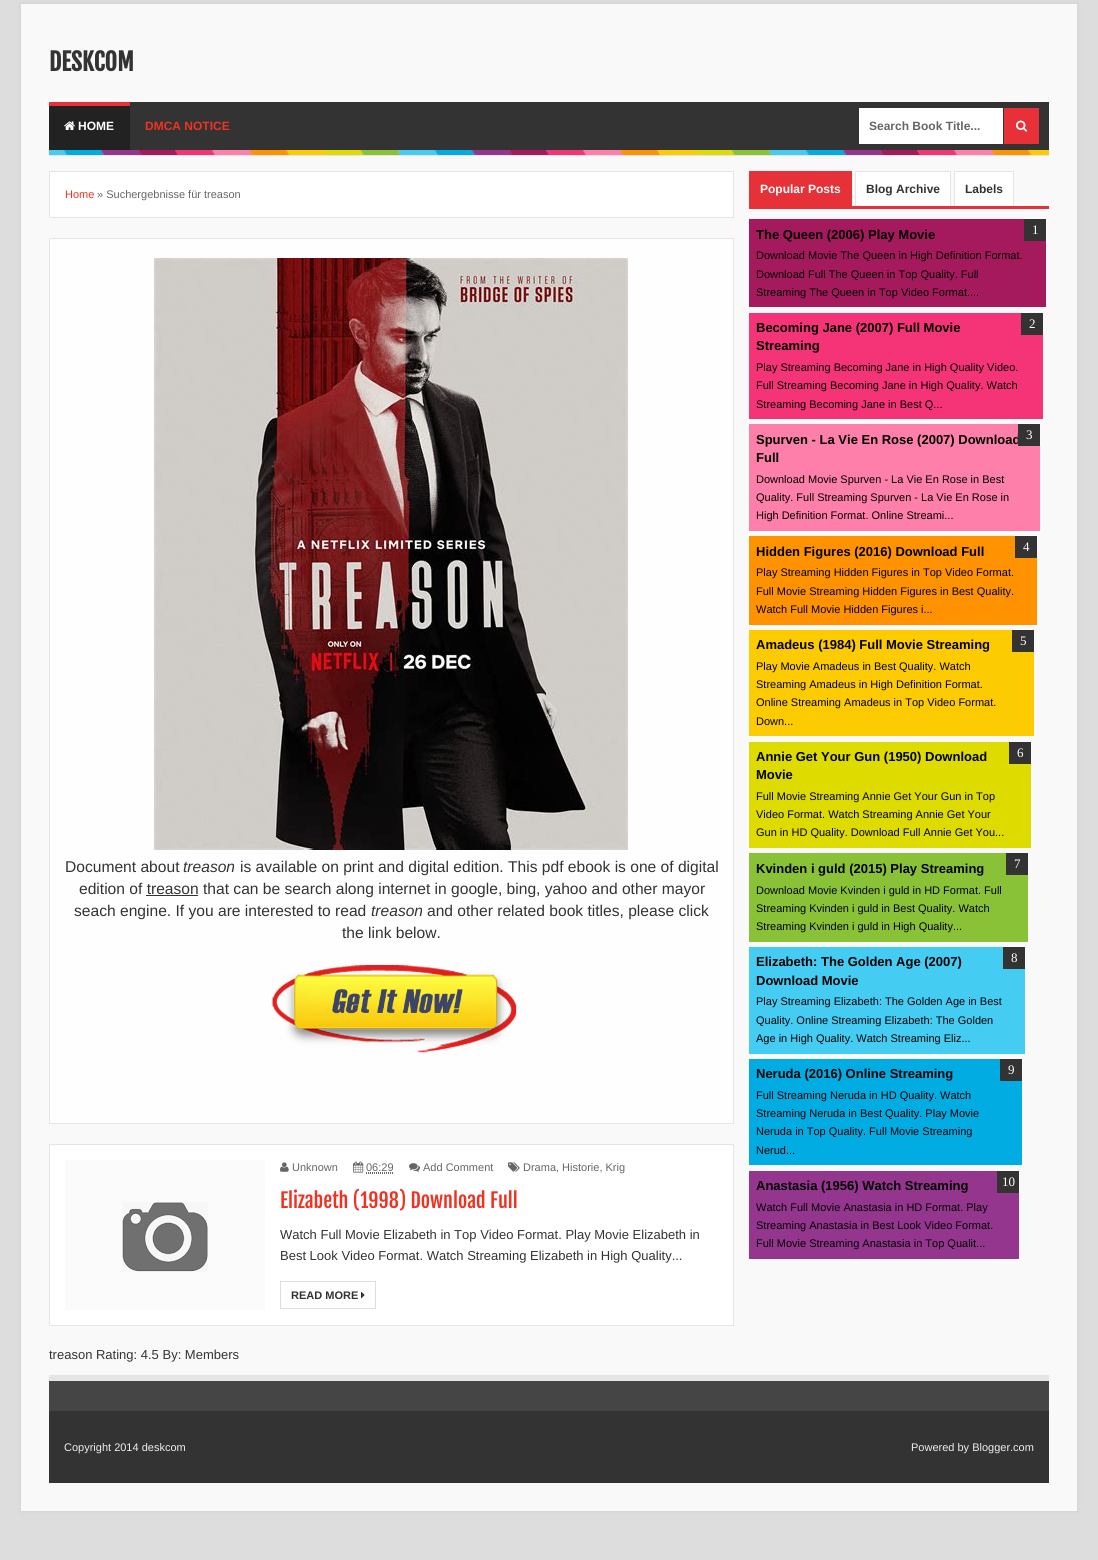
#include <cairo.h>
#include <math.h>
#include <stddef.h>

static cairo_t *ctx;

static void use_color(int r, int g, int b) {
    cairo_set_source_rgb(ctx, r / 255.0, g / 255.0, b / 255.0);
}

static void round_rect(double x, double y, double w, double h, double r) {
    cairo_new_sub_path(ctx);
    cairo_arc(ctx, x + w - r, y + h - r, r, 0, M_PI / 2);
    cairo_arc(ctx, x + r, y + h - r, r, M_PI / 2, M_PI);
    cairo_arc(ctx, x + r, y + r, r, M_PI, 1.5 * M_PI);
    cairo_arc(ctx, x + w - r, y + r, r, 1.5 * M_PI, 2 * M_PI);
    cairo_close_path(ctx);
}

static void shadow(double x, double y, double w, double h, double r, double blur, double alpha) {
    cairo_push_group_with_content(ctx, CAIRO_CONTENT_ALPHA);
    cairo_set_operator(ctx, CAIRO_OPERATOR_SOURCE);
    for (int i = 15; i >= -15 && fmin(w, h) + blur * i / 3 > 0; i -= 2) {
        double e = blur * i / 6;
        cairo_set_source_rgba(ctx, 0, 0, 0, alpha * erfc((i - 1) / 8.5) / 2);
        round_rect(x - e, y - e, w + 2 * e, h + 2 * e, fmax(0, fmin(r + e + blur * .6, fmin(w, h) / 2 + e)));
        cairo_fill(ctx);
    }
    cairo_pattern_t *soft = cairo_pop_group(ctx);
    cairo_mask(ctx, soft);
    cairo_pattern_destroy(soft);
}

static void picture(const char *path, double x, double y, double w, double h) {
    cairo_surface_t *image = cairo_image_surface_create_from_png(path);
    cairo_save(ctx);
    cairo_set_source_surface(ctx, image, x, y);
    cairo_rectangle(ctx, x, y, w, h);
    cairo_fill(ctx);
    cairo_restore(ctx);
    cairo_surface_destroy(image);
}

int main(void) {
    cairo_surface_t *surface = cairo_image_surface_create(CAIRO_FORMAT_RGB24, 1098, 1560);
    ctx = cairo_create(surface);
    cairo_font_options_t *options = cairo_font_options_create();
    cairo_font_options_set_hint_metrics(options, CAIRO_HINT_METRICS_OFF);
    cairo_font_options_set_hint_style(options, CAIRO_HINT_STYLE_NONE);
    cairo_set_font_options(ctx, options);
    cairo_set_miter_limit(ctx, 4);
    use_color(221, 221, 221);
    cairo_paint(ctx);
    use_color(80, 80, 80);
    shadow(21, 4, 1056, 1507, 0, 2.5, 0.1);
    use_color(249, 249, 249);
    cairo_rectangle(ctx, 21, 4, 1056, 1507);
    cairo_fill(ctx);
    cairo_select_font_face(ctx, "Fjalla One", CAIRO_FONT_SLANT_NORMAL, CAIRO_FONT_WEIGHT_BOLD);
    cairo_set_font_size(ctx, 24);
    use_color(51, 51, 51);
    cairo_move_to(ctx, 49, 71);
    cairo_show_text(ctx, "DESKCOM");
    cairo_rectangle(ctx, 130, 102, 919, 48);
    cairo_fill(ctx);
    use_color(34, 34, 34);
    cairo_rectangle(ctx, 49, 106, 81, 44);
    cairo_fill(ctx);
    use_color(231, 49, 56);
    cairo_rectangle(ctx, 49, 102, 81, 4);
    cairo_fill(ctx);
    picture("img1.png", 64, 121, 11, 9);
    cairo_select_font_face(ctx, "Liberation Sans", CAIRO_FONT_SLANT_NORMAL, CAIRO_FONT_WEIGHT_BOLD);
    cairo_set_font_size(ctx, 12);
    use_color(255, 255, 255);
    cairo_move_to(ctx, 78, 130);
    cairo_show_text(ctx, "HOME");
    use_color(238, 51, 34);
    cairo_move_to(ctx, 145, 130);
    cairo_show_text(ctx, "DMCA NOTICE");
    use_color(255, 255, 255);
    cairo_rectangle(ctx, 859, 108, 144, 36);
    cairo_fill(ctx);
    use_color(102, 102, 102);
    cairo_move_to(ctx, 869, 130);
    cairo_show_text(ctx, "Search Book Title...");
    use_color(231, 48, 55);
    cairo_rectangle(ctx, 1004, 108, 35, 36);
    cairo_fill(ctx);
    picture("img2.png", 1016, 120, 12, 12);
    picture("img3.png", 49, 150, 1000, 5);
    use_color(229, 229, 229);
    cairo_rectangle(ctx, 49, 155, 1000, 1);
    cairo_fill(ctx);
    use_color(255, 255, 255);
    cairo_rectangle(ctx, 49.5, 171.5, 684, 46);
    cairo_fill_preserve(ctx);
    use_color(229, 229, 229);
    cairo_set_line_width(ctx, 1);
    cairo_stroke(ctx);
    cairo_select_font_face(ctx, "Liberation Sans", CAIRO_FONT_SLANT_NORMAL, CAIRO_FONT_WEIGHT_NORMAL);
    cairo_set_font_size(ctx, 11);
    use_color(238, 51, 34);
    cairo_move_to(ctx, 65, 198);
    cairo_show_text(ctx, "Home");
    use_color(102, 102, 102);
    cairo_move_to(ctx, 97, 198);
    cairo_show_text(ctx, "» Suchergebnisse für treason");
    cairo_rectangle(ctx, 49.5, 238.5, 684, 885);
    use_color(229, 229, 229);
    cairo_stroke(ctx);
    use_color(254, 254, 254);
    cairo_rectangle(ctx, 50, 239, 683, 884);
    cairo_fill(ctx);
    picture("img4.png", 154, 258, 474, 592);
    cairo_set_font_size(ctx, 15.6);
    use_color(51, 51, 51);
    cairo_move_to(ctx, 65, 872);
    cairo_show_text(ctx, "Document about");
    cairo_select_font_face(ctx, "Liberation Sans", CAIRO_FONT_SLANT_ITALIC, CAIRO_FONT_WEIGHT_NORMAL);
    cairo_move_to(ctx, 183, 872);
    cairo_show_text(ctx, "treason");
    cairo_select_font_face(ctx, "Liberation Sans", CAIRO_FONT_SLANT_NORMAL, CAIRO_FONT_WEIGHT_NORMAL);
    cairo_move_to(ctx, 240, 872);
    cairo_show_text(ctx, "is available on print and digital edition. This pdf ebook is one of digital");
    cairo_move_to(ctx, 79, 894);
    cairo_show_text(ctx, "edition of treason that can be search along internet in google, bing, yahoo and other mayor");
    cairo_rectangle(ctx, 146, 895, 52, 1);
    cairo_fill(ctx);
    cairo_move_to(ctx, 74, 916);
    cairo_show_text(ctx, "seach engine. If you are interested to read");
    cairo_select_font_face(ctx, "Liberation Sans", CAIRO_FONT_SLANT_ITALIC, CAIRO_FONT_WEIGHT_NORMAL);
    cairo_move_to(ctx, 371, 916);
    cairo_show_text(ctx, "treason");
    cairo_select_font_face(ctx, "Liberation Sans", CAIRO_FONT_SLANT_NORMAL, CAIRO_FONT_WEIGHT_NORMAL);
    cairo_move_to(ctx, 427, 916);
    cairo_show_text(ctx, "and other related book titles, please click");
    cairo_move_to(ctx, 342, 938);
    cairo_show_text(ctx, "the link below.");
    picture("img5.png", 272, 965, 245, 88);
    use_color(255, 255, 255);
    cairo_rectangle(ctx, 49.5, 1144.5, 684, 181);
    cairo_fill_preserve(ctx);
    use_color(229, 229, 229);
    cairo_stroke(ctx);
    use_color(251, 251, 251);
    cairo_rectangle(ctx, 65, 1160, 200, 150);
    cairo_fill(ctx);
    picture("img6.png", 122, 1202, 86, 70);
    picture("img7.png", 280, 1162, 9, 10);
    cairo_set_font_size(ctx, 11);
    use_color(102, 102, 102);
    cairo_move_to(ctx, 292, 1171);
    cairo_show_text(ctx, "Unknown");
    picture("img8.png", 353, 1161, 11, 12);
    cairo_move_to(ctx, 366, 1171);
    cairo_show_text(ctx, "06:29");
    cairo_new_path(ctx);
    cairo_move_to(ctx, 366, 1173.5);
    cairo_line_to(ctx, 393, 1173.5);
    cairo_move_to(ctx, 366, 1172.5);
    cairo_line_to(ctx, 393.5, 1172.5);
    cairo_set_dash(ctx, (double[]){1, 1}, 2, 0);
    cairo_stroke(ctx);
    picture("img9.png", 409, 1163, 11, 9);
    cairo_move_to(ctx, 423, 1171);
    cairo_show_text(ctx, "Add Comment");
    picture("img10.png", 508, 1162, 12, 10);
    cairo_move_to(ctx, 523, 1171);
    cairo_show_text(ctx, "Drama, Historie, Krig");
    cairo_select_font_face(ctx, "Fjalla One", CAIRO_FONT_SLANT_NORMAL, CAIRO_FONT_WEIGHT_NORMAL);
    cairo_set_font_size(ctx, 20);
    use_color(238, 51, 34);
    cairo_move_to(ctx, 280, 1208);
    cairo_show_text(ctx, "Elizabeth (1998) Download Full");
    cairo_select_font_face(ctx, "Liberation Sans", CAIRO_FONT_SLANT_NORMAL, CAIRO_FONT_WEIGHT_NORMAL);
    cairo_set_font_size(ctx, 13);
    use_color(51, 51, 51);
    cairo_move_to(ctx, 280, 1239);
    cairo_show_text(ctx, "Watch Full Movie Elizabeth in Top Video Format. Play Movie Elizabeth in");
    cairo_move_to(ctx, 280, 1260);
    cairo_show_text(ctx, "Best Look Video Format. Watch Streaming Elizabeth in High Quality...");
    cairo_rectangle(ctx, 280.5, 1281.5, 95, 27);
    use_color(221, 221, 221);
    cairo_set_dash(ctx, NULL, 0, 0);
    cairo_stroke(ctx);
    cairo_select_font_face(ctx, "Liberation Sans", CAIRO_FONT_SLANT_NORMAL, CAIRO_FONT_WEIGHT_BOLD);
    cairo_set_font_size(ctx, 11);
    use_color(51, 51, 51);
    cairo_move_to(ctx, 291, 1299);
    cairo_show_text(ctx, "READ MORE");
    picture("img11.png", 361, 1292, 4, 7);
    cairo_select_font_face(ctx, "Liberation Sans", CAIRO_FONT_SLANT_NORMAL, CAIRO_FONT_WEIGHT_NORMAL);
    cairo_set_font_size(ctx, 13);
    cairo_move_to(ctx, 49, 1359);
    cairo_show_text(ctx, "treason Rating: 4.5 By: Members");
    use_color(231, 49, 56);
    cairo_rectangle(ctx, 749, 206, 300, 3);
    cairo_fill(ctx);
    cairo_rectangle(ctx, 749, 171, 103, 35);
    cairo_fill(ctx);
    cairo_select_font_face(ctx, "Liberation Sans", CAIRO_FONT_SLANT_NORMAL, CAIRO_FONT_WEIGHT_BOLD);
    cairo_set_font_size(ctx, 12);
    use_color(255, 255, 255);
    cairo_move_to(ctx, 760, 193);
    cairo_show_text(ctx, "Popular Posts");
    cairo_rectangle(ctx, 856, 172, 94, 34);
    cairo_fill(ctx);
    use_color(229, 229, 229);
    cairo_rectangle(ctx, 855, 171, 96, 1);
    cairo_fill(ctx);
    cairo_rectangle(ctx, 950, 171, 1, 35);
    cairo_fill(ctx);
    cairo_rectangle(ctx, 855, 171, 1, 35);
    cairo_fill(ctx);
    use_color(51, 51, 51);
    cairo_move_to(ctx, 866, 193);
    cairo_show_text(ctx, "Blog Archive");
    use_color(255, 255, 255);
    cairo_rectangle(ctx, 955, 172, 58, 34);
    cairo_fill(ctx);
    use_color(229, 229, 229);
    cairo_rectangle(ctx, 954, 171, 60, 1);
    cairo_fill(ctx);
    cairo_rectangle(ctx, 1013, 171, 1, 35);
    cairo_fill(ctx);
    cairo_rectangle(ctx, 954, 171, 1, 35);
    cairo_fill(ctx);
    use_color(51, 51, 51);
    cairo_move_to(ctx, 965, 193);
    cairo_show_text(ctx, "Labels");
    use_color(165, 26, 93);
    cairo_rectangle(ctx, 749, 219, 297, 88);
    cairo_fill(ctx);
    cairo_set_font_size(ctx, 13);
    use_color(0, 0, 0);
    cairo_move_to(ctx, 756, 239);
    cairo_show_text(ctx, "The Queen (2006) Play Movie");
    cairo_select_font_face(ctx, "Liberation Sans", CAIRO_FONT_SLANT_NORMAL, CAIRO_FONT_WEIGHT_NORMAL);
    cairo_set_font_size(ctx, 11);
    cairo_move_to(ctx, 756, 259);
    cairo_show_text(ctx, "Download Movie The Queen in High Definition Format.");
    cairo_move_to(ctx, 756, 278);
    cairo_show_text(ctx, "Download Full The Queen in Top Quality. Full");
    cairo_move_to(ctx, 756, 296);
    cairo_show_text(ctx, "Streaming The Queen in Top Video Format....");
    use_color(51, 51, 51);
    cairo_rectangle(ctx, 1024, 219, 22, 22);
    cairo_fill(ctx);
    cairo_select_font_face(ctx, "Liberation Serif", CAIRO_FONT_SLANT_NORMAL, CAIRO_FONT_WEIGHT_NORMAL);
    cairo_set_font_size(ctx, 13);
    use_color(255, 255, 255);
    cairo_move_to(ctx, 1032, 234);
    cairo_show_text(ctx, "1");
    use_color(245, 52, 119);
    cairo_rectangle(ctx, 749, 313, 294, 106);
    cairo_fill(ctx);
    cairo_select_font_face(ctx, "Liberation Sans", CAIRO_FONT_SLANT_NORMAL, CAIRO_FONT_WEIGHT_BOLD);
    use_color(0, 0, 0);
    cairo_move_to(ctx, 756, 332);
    cairo_show_text(ctx, "Becoming Jane (2007) Full Movie");
    cairo_move_to(ctx, 756, 350);
    cairo_show_text(ctx, "Streaming");
    cairo_select_font_face(ctx, "Liberation Sans", CAIRO_FONT_SLANT_NORMAL, CAIRO_FONT_WEIGHT_NORMAL);
    cairo_set_font_size(ctx, 11);
    cairo_move_to(ctx, 756, 371);
    cairo_show_text(ctx, "Play Streaming Becoming Jane in High Quality Video.");
    cairo_move_to(ctx, 756, 389);
    cairo_show_text(ctx, "Full Streaming Becoming Jane in High Quality. Watch");
    cairo_move_to(ctx, 756, 408);
    cairo_show_text(ctx, "Streaming Becoming Jane in Best Q...");
    use_color(51, 51, 51);
    cairo_rectangle(ctx, 1021, 313, 22, 22);
    cairo_fill(ctx);
    cairo_select_font_face(ctx, "Liberation Serif", CAIRO_FONT_SLANT_NORMAL, CAIRO_FONT_WEIGHT_NORMAL);
    cairo_set_font_size(ctx, 13);
    use_color(255, 255, 255);
    cairo_move_to(ctx, 1029, 328);
    cairo_show_text(ctx, "2");
    use_color(253, 127, 170);
    cairo_rectangle(ctx, 749, 424, 291, 107);
    cairo_fill(ctx);
    cairo_select_font_face(ctx, "Liberation Sans", CAIRO_FONT_SLANT_NORMAL, CAIRO_FONT_WEIGHT_BOLD);
    use_color(0, 0, 0);
    cairo_move_to(ctx, 756, 444);
    cairo_show_text(ctx, "Spurven - La Vie En Rose (2007) Download");
    cairo_move_to(ctx, 756, 462);
    cairo_show_text(ctx, "Full");
    cairo_select_font_face(ctx, "Liberation Sans", CAIRO_FONT_SLANT_NORMAL, CAIRO_FONT_WEIGHT_NORMAL);
    cairo_set_font_size(ctx, 11);
    cairo_move_to(ctx, 756, 483);
    cairo_show_text(ctx, "Download Movie Spurven - La Vie En Rose in Best");
    cairo_move_to(ctx, 756, 501);
    cairo_show_text(ctx, "Quality. Full Streaming Spurven - La Vie En Rose in");
    cairo_move_to(ctx, 756, 519);
    cairo_show_text(ctx, "High Definition Format. Online Streami...");
    use_color(51, 51, 51);
    cairo_rectangle(ctx, 1018, 424, 22, 22);
    cairo_fill(ctx);
    cairo_select_font_face(ctx, "Liberation Serif", CAIRO_FONT_SLANT_NORMAL, CAIRO_FONT_WEIGHT_NORMAL);
    cairo_set_font_size(ctx, 13);
    use_color(255, 255, 255);
    cairo_move_to(ctx, 1026, 439);
    cairo_show_text(ctx, "3");
    use_color(255, 146, 1);
    cairo_rectangle(ctx, 749, 536, 288, 89);
    cairo_fill(ctx);
    cairo_select_font_face(ctx, "Liberation Sans", CAIRO_FONT_SLANT_NORMAL, CAIRO_FONT_WEIGHT_BOLD);
    use_color(0, 0, 0);
    cairo_move_to(ctx, 756, 556);
    cairo_show_text(ctx, "Hidden Figures (2016) Download Full");
    cairo_select_font_face(ctx, "Liberation Sans", CAIRO_FONT_SLANT_NORMAL, CAIRO_FONT_WEIGHT_NORMAL);
    cairo_set_font_size(ctx, 11);
    cairo_move_to(ctx, 756, 576);
    cairo_show_text(ctx, "Play Streaming Hidden Figures in Top Video Format.");
    cairo_move_to(ctx, 756, 595);
    cairo_show_text(ctx, "Full Movie Streaming Hidden Figures in Best Quality.");
    cairo_move_to(ctx, 756, 613);
    cairo_show_text(ctx, "Watch Full Movie Hidden Figures i...");
    use_color(51, 51, 51);
    cairo_rectangle(ctx, 1015, 536, 22, 22);
    cairo_fill(ctx);
    cairo_select_font_face(ctx, "Liberation Serif", CAIRO_FONT_SLANT_NORMAL, CAIRO_FONT_WEIGHT_NORMAL);
    cairo_set_font_size(ctx, 13);
    use_color(255, 255, 255);
    cairo_move_to(ctx, 1023, 551);
    cairo_show_text(ctx, "4");
    use_color(253, 203, 1);
    cairo_rectangle(ctx, 749, 630, 285, 106);
    cairo_fill(ctx);
    cairo_select_font_face(ctx, "Liberation Sans", CAIRO_FONT_SLANT_NORMAL, CAIRO_FONT_WEIGHT_BOLD);
    use_color(0, 0, 0);
    cairo_move_to(ctx, 756, 649);
    cairo_show_text(ctx, "Amadeus (1984) Full Movie Streaming");
    cairo_select_font_face(ctx, "Liberation Sans", CAIRO_FONT_SLANT_NORMAL, CAIRO_FONT_WEIGHT_NORMAL);
    cairo_set_font_size(ctx, 11);
    cairo_move_to(ctx, 756, 670);
    cairo_show_text(ctx, "Play Movie Amadeus in Best Quality. Watch");
    cairo_move_to(ctx, 756, 688);
    cairo_show_text(ctx, "Streaming Amadeus in High Definition Format.");
    cairo_move_to(ctx, 756, 706);
    cairo_show_text(ctx, "Online Streaming Amadeus in Top Video Format.");
    cairo_move_to(ctx, 756, 725);
    cairo_show_text(ctx, "Down...");
    use_color(51, 51, 51);
    cairo_rectangle(ctx, 1012, 630, 22, 22);
    cairo_fill(ctx);
    cairo_select_font_face(ctx, "Liberation Serif", CAIRO_FONT_SLANT_NORMAL, CAIRO_FONT_WEIGHT_NORMAL);
    cairo_set_font_size(ctx, 13);
    use_color(255, 255, 255);
    cairo_move_to(ctx, 1020, 645);
    cairo_show_text(ctx, "5");
    use_color(222, 219, 0);
    cairo_rectangle(ctx, 749, 742, 282, 106);
    cairo_fill(ctx);
    cairo_select_font_face(ctx, "Liberation Sans", CAIRO_FONT_SLANT_NORMAL, CAIRO_FONT_WEIGHT_BOLD);
    use_color(0, 0, 0);
    cairo_move_to(ctx, 756, 761);
    cairo_show_text(ctx, "Annie Get Your Gun (1950) Download");
    cairo_move_to(ctx, 756, 779);
    cairo_show_text(ctx, "Movie");
    cairo_select_font_face(ctx, "Liberation Sans", CAIRO_FONT_SLANT_NORMAL, CAIRO_FONT_WEIGHT_NORMAL);
    cairo_set_font_size(ctx, 11);
    cairo_move_to(ctx, 756, 800);
    cairo_show_text(ctx, "Full Movie Streaming Annie Get Your Gun in Top");
    cairo_move_to(ctx, 756, 818);
    cairo_show_text(ctx, "Video Format. Watch Streaming Annie Get Your");
    cairo_move_to(ctx, 756, 836);
    cairo_show_text(ctx, "Gun in HD Quality. Download Full Annie Get You...");
    use_color(51, 51, 51);
    cairo_rectangle(ctx, 1009, 742, 22, 22);
    cairo_fill(ctx);
    cairo_select_font_face(ctx, "Liberation Serif", CAIRO_FONT_SLANT_NORMAL, CAIRO_FONT_WEIGHT_NORMAL);
    cairo_set_font_size(ctx, 13);
    use_color(255, 255, 255);
    cairo_move_to(ctx, 1017, 757);
    cairo_show_text(ctx, "6");
    use_color(137, 194, 55);
    cairo_rectangle(ctx, 749, 853, 279, 89);
    cairo_fill(ctx);
    cairo_select_font_face(ctx, "Liberation Sans", CAIRO_FONT_SLANT_NORMAL, CAIRO_FONT_WEIGHT_BOLD);
    use_color(0, 0, 0);
    cairo_move_to(ctx, 756, 873);
    cairo_show_text(ctx, "Kvinden i guld (2015) Play Streaming");
    cairo_select_font_face(ctx, "Liberation Sans", CAIRO_FONT_SLANT_NORMAL, CAIRO_FONT_WEIGHT_NORMAL);
    cairo_set_font_size(ctx, 11);
    cairo_move_to(ctx, 756, 894);
    cairo_show_text(ctx, "Download Movie Kvinden i guld in HD Format. Full");
    cairo_move_to(ctx, 756, 912);
    cairo_show_text(ctx, "Streaming Kvinden i guld in Best Quality. Watch");
    cairo_move_to(ctx, 756, 930);
    cairo_show_text(ctx, "Streaming Kvinden i guld in High Quality...");
    use_color(51, 51, 51);
    cairo_rectangle(ctx, 1006, 853, 22, 22);
    cairo_fill(ctx);
    cairo_select_font_face(ctx, "Liberation Serif", CAIRO_FONT_SLANT_NORMAL, CAIRO_FONT_WEIGHT_NORMAL);
    cairo_set_font_size(ctx, 13);
    use_color(255, 255, 255);
    cairo_move_to(ctx, 1014, 868);
    cairo_show_text(ctx, "7");
    use_color(68, 204, 242);
    cairo_rectangle(ctx, 749, 947, 276, 107);
    cairo_fill(ctx);
    cairo_select_font_face(ctx, "Liberation Sans", CAIRO_FONT_SLANT_NORMAL, CAIRO_FONT_WEIGHT_BOLD);
    use_color(0, 0, 0);
    cairo_move_to(ctx, 756, 966);
    cairo_show_text(ctx, "Elizabeth: The Golden Age (2007)");
    cairo_move_to(ctx, 756, 985);
    cairo_show_text(ctx, "Download Movie");
    cairo_select_font_face(ctx, "Liberation Sans", CAIRO_FONT_SLANT_NORMAL, CAIRO_FONT_WEIGHT_NORMAL);
    cairo_set_font_size(ctx, 11);
    cairo_move_to(ctx, 756, 1005);
    cairo_show_text(ctx, "Play Streaming Elizabeth: The Golden Age in Best");
    cairo_move_to(ctx, 756, 1024);
    cairo_show_text(ctx, "Quality. Online Streaming Elizabeth: The Golden");
    cairo_move_to(ctx, 756, 1042);
    cairo_show_text(ctx, "Age in High Quality. Watch Streaming Eliz...");
    use_color(51, 51, 51);
    cairo_rectangle(ctx, 1003, 947, 22, 22);
    cairo_fill(ctx);
    cairo_select_font_face(ctx, "Liberation Serif", CAIRO_FONT_SLANT_NORMAL, CAIRO_FONT_WEIGHT_NORMAL);
    cairo_set_font_size(ctx, 13);
    use_color(255, 255, 255);
    cairo_move_to(ctx, 1011, 962);
    cairo_show_text(ctx, "8");
    use_color(1, 172, 226);
    cairo_rectangle(ctx, 749, 1059, 273, 106);
    cairo_fill(ctx);
    cairo_select_font_face(ctx, "Liberation Sans", CAIRO_FONT_SLANT_NORMAL, CAIRO_FONT_WEIGHT_BOLD);
    use_color(0, 0, 0);
    cairo_move_to(ctx, 756, 1078);
    cairo_show_text(ctx, "Neruda (2016) Online Streaming");
    cairo_select_font_face(ctx, "Liberation Sans", CAIRO_FONT_SLANT_NORMAL, CAIRO_FONT_WEIGHT_NORMAL);
    cairo_set_font_size(ctx, 11);
    cairo_move_to(ctx, 756, 1099);
    cairo_show_text(ctx, "Full Streaming Neruda in HD Quality. Watch");
    cairo_move_to(ctx, 756, 1117);
    cairo_show_text(ctx, "Streaming Neruda in Best Quality. Play Movie");
    cairo_move_to(ctx, 756, 1135);
    cairo_show_text(ctx, "Neruda in Top Quality. Full Movie Streaming");
    cairo_move_to(ctx, 756, 1154);
    cairo_show_text(ctx, "Nerud...");
    use_color(51, 51, 51);
    cairo_rectangle(ctx, 1000, 1059, 22, 22);
    cairo_fill(ctx);
    cairo_select_font_face(ctx, "Liberation Serif", CAIRO_FONT_SLANT_NORMAL, CAIRO_FONT_WEIGHT_NORMAL);
    cairo_set_font_size(ctx, 13);
    use_color(255, 255, 255);
    cairo_move_to(ctx, 1008, 1074);
    cairo_show_text(ctx, "9");
    use_color(148, 54, 142);
    cairo_rectangle(ctx, 749, 1171, 270, 88);
    cairo_fill(ctx);
    cairo_select_font_face(ctx, "Liberation Sans", CAIRO_FONT_SLANT_NORMAL, CAIRO_FONT_WEIGHT_BOLD);
    use_color(0, 0, 0);
    cairo_move_to(ctx, 756, 1190);
    cairo_show_text(ctx, "Anastasia (1956) Watch Streaming");
    cairo_select_font_face(ctx, "Liberation Sans", CAIRO_FONT_SLANT_NORMAL, CAIRO_FONT_WEIGHT_NORMAL);
    cairo_set_font_size(ctx, 11);
    cairo_move_to(ctx, 756, 1211);
    cairo_show_text(ctx, "Watch Full Movie Anastasia in HD Format. Play");
    cairo_move_to(ctx, 756, 1229);
    cairo_show_text(ctx, "Streaming Anastasia in Best Look Video Format.");
    cairo_move_to(ctx, 756, 1247);
    cairo_show_text(ctx, "Full Movie Streaming Anastasia in Top Qualit...");
    use_color(51, 51, 51);
    cairo_rectangle(ctx, 997, 1171, 22, 22);
    cairo_fill(ctx);
    cairo_select_font_face(ctx, "Liberation Serif", CAIRO_FONT_SLANT_NORMAL, CAIRO_FONT_WEIGHT_NORMAL);
    cairo_set_font_size(ctx, 13);
    use_color(255, 255, 255);
    cairo_move_to(ctx, 1002, 1186);
    cairo_show_text(ctx, "10");
    use_color(69, 69, 69);
    cairo_rectangle(ctx, 49, 1381, 1000, 30);
    cairo_fill(ctx);
    use_color(229, 229, 229);
    cairo_rectangle(ctx, 49, 1375, 1000, 6);
    cairo_fill(ctx);
    use_color(51, 51, 51);
    cairo_rectangle(ctx, 49, 1411, 1000, 72);
    cairo_fill(ctx);
    cairo_select_font_face(ctx, "Liberation Sans", CAIRO_FONT_SLANT_NORMAL, CAIRO_FONT_WEIGHT_NORMAL);
    cairo_set_font_size(ctx, 11);
    use_color(238, 238, 238);
    cairo_move_to(ctx, 64, 1451);
    cairo_show_text(ctx, "Copyright 2014 deskcom");
    cairo_move_to(ctx, 911, 1451);
    cairo_show_text(ctx, "Powered by Blogger.com");
    cairo_surface_write_to_png(surface, "result.png");
    cairo_font_options_destroy(options);
    cairo_destroy(ctx);
    cairo_surface_destroy(surface);
    return 0;
}
